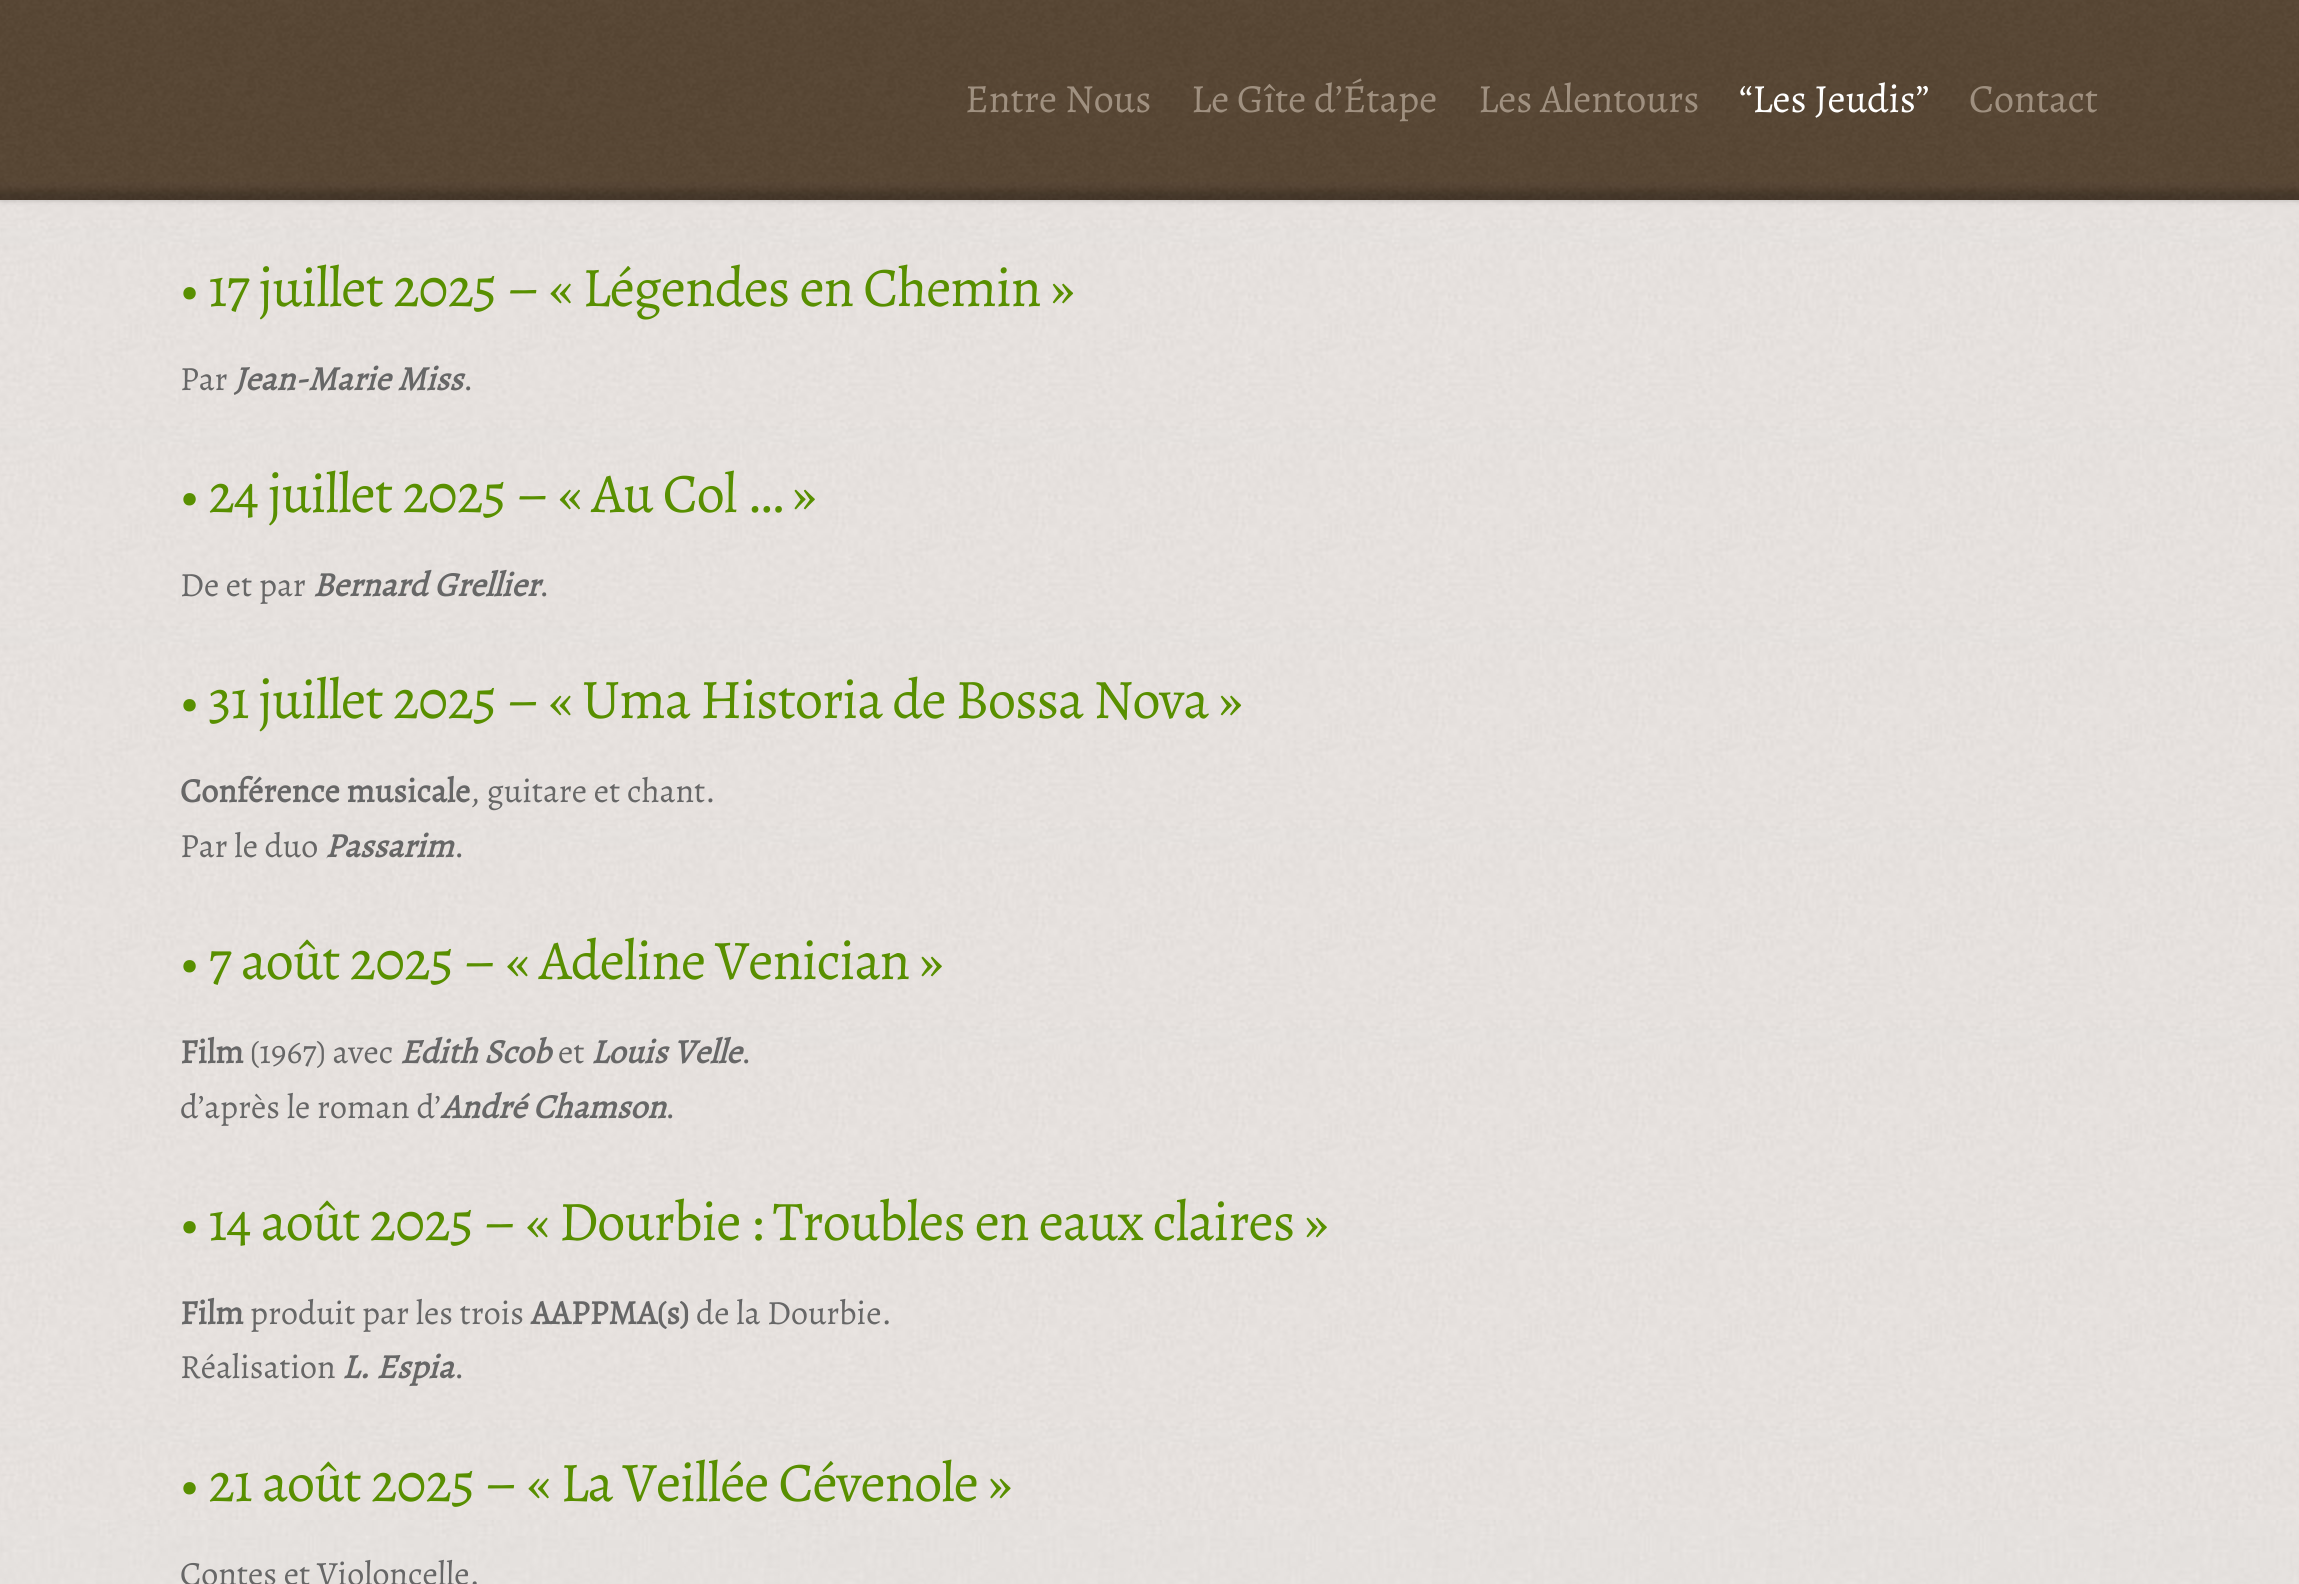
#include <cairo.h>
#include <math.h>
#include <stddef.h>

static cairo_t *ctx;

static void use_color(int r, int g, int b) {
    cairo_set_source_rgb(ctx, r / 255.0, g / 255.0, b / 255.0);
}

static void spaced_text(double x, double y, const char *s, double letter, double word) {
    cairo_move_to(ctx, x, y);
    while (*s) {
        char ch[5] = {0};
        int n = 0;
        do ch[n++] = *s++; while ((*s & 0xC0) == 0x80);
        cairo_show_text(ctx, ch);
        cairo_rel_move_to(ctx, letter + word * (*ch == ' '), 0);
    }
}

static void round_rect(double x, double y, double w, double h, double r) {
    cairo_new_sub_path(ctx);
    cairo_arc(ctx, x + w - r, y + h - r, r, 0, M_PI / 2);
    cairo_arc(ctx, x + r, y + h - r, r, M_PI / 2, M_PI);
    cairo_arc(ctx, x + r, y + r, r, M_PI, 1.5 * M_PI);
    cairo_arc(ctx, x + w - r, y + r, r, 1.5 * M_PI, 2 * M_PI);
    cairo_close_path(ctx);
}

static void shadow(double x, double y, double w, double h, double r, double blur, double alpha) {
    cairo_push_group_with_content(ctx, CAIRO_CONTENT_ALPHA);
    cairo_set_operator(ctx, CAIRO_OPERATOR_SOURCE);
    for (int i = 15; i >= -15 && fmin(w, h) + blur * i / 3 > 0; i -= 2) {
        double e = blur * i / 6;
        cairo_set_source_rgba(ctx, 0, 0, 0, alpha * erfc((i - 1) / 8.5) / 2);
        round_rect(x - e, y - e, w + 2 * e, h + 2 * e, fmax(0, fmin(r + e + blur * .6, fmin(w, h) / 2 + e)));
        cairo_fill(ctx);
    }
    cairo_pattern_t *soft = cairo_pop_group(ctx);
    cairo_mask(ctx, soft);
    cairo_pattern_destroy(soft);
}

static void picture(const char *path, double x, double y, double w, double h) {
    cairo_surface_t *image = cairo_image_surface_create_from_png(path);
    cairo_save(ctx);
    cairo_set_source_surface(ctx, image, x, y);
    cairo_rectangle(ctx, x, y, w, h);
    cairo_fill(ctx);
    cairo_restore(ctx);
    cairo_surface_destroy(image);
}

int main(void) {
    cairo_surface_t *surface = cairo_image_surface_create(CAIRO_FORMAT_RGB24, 2299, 1584);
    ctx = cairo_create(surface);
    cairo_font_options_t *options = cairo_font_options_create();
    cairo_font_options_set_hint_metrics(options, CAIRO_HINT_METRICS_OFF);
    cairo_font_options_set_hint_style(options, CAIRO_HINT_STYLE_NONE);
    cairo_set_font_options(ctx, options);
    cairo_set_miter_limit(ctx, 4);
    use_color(255, 255, 255);
    cairo_paint(ctx);
    picture("img2.png", 0, 200, 2299, 1384);
    use_color(0, 0, 0);
    shadow(0, 0, 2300, 200, 0, 3, 0.22);
    picture("img1.png", 0, 0, 2299, 200);
    cairo_select_font_face(ctx, "Alegreya", CAIRO_FONT_SLANT_NORMAL, CAIRO_FONT_WEIGHT_NORMAL);
    cairo_set_font_size(ctx, 40);
    use_color(159, 144, 128);
    cairo_move_to(ctx, 965, 112);
    cairo_show_text(ctx, "Entre Nous");
    cairo_move_to(ctx, 1191, 112);
    cairo_show_text(ctx, "Le Gîte d’Étape");
    cairo_move_to(ctx, 1478, 112);
    cairo_show_text(ctx, "Les Alentours");
    use_color(255, 255, 255);
    cairo_move_to(ctx, 1739, 112);
    cairo_show_text(ctx, "“Les Jeudis”");
    use_color(159, 144, 128);
    cairo_move_to(ctx, 1969, 112);
    cairo_show_text(ctx, "Contact");
    cairo_set_font_size(ctx, 56);
    use_color(88, 143, 0);
    spaced_text(180, 306, "• 17 juillet 2025 – « Légendes en Chemin »", -1, 0);
    cairo_set_font_size(ctx, 34);
    use_color(103, 103, 103);
    cairo_move_to(ctx, 180, 390);
    cairo_show_text(ctx, "Par");
    cairo_select_font_face(ctx, "Alegreya", CAIRO_FONT_SLANT_ITALIC, CAIRO_FONT_WEIGHT_BOLD);
    cairo_move_to(ctx, 234, 390);
    cairo_show_text(ctx, "Jean-Marie Miss");
    cairo_select_font_face(ctx, "Alegreya", CAIRO_FONT_SLANT_NORMAL, CAIRO_FONT_WEIGHT_NORMAL);
    cairo_move_to(ctx, 463, 390);
    cairo_show_text(ctx, ".");
    cairo_set_font_size(ctx, 56);
    use_color(88, 143, 0);
    spaced_text(180, 512, "• 24 juillet 2025 – « Au Col … »", -1, 0);
    cairo_set_font_size(ctx, 34);
    use_color(103, 103, 103);
    cairo_move_to(ctx, 180, 596);
    cairo_show_text(ctx, "De et par");
    cairo_select_font_face(ctx, "Alegreya", CAIRO_FONT_SLANT_ITALIC, CAIRO_FONT_WEIGHT_BOLD);
    cairo_move_to(ctx, 313, 596);
    cairo_show_text(ctx, "Bernard Grellier");
    cairo_select_font_face(ctx, "Alegreya", CAIRO_FONT_SLANT_NORMAL, CAIRO_FONT_WEIGHT_NORMAL);
    cairo_move_to(ctx, 539, 596);
    cairo_show_text(ctx, ".");
    cairo_set_font_size(ctx, 56);
    use_color(88, 143, 0);
    spaced_text(180, 718, "• 31 juillet 2025 – « Uma Historia de Bossa Nova »", -1, 0);
    cairo_select_font_face(ctx, "Alegreya", CAIRO_FONT_SLANT_NORMAL, CAIRO_FONT_WEIGHT_BOLD);
    cairo_set_font_size(ctx, 34);
    use_color(103, 103, 103);
    cairo_move_to(ctx, 180, 802);
    cairo_show_text(ctx, "Conférence musicale");
    cairo_select_font_face(ctx, "Alegreya", CAIRO_FONT_SLANT_NORMAL, CAIRO_FONT_WEIGHT_NORMAL);
    cairo_move_to(ctx, 470, 802);
    cairo_show_text(ctx, ", guitare et chant.");
    cairo_move_to(ctx, 180, 857);
    cairo_show_text(ctx, "Par le duo");
    cairo_select_font_face(ctx, "Alegreya", CAIRO_FONT_SLANT_ITALIC, CAIRO_FONT_WEIGHT_BOLD);
    cairo_move_to(ctx, 325, 857);
    cairo_show_text(ctx, "Passarim");
    cairo_select_font_face(ctx, "Alegreya", CAIRO_FONT_SLANT_NORMAL, CAIRO_FONT_WEIGHT_NORMAL);
    cairo_move_to(ctx, 454, 857);
    cairo_show_text(ctx, ".");
    cairo_set_font_size(ctx, 56);
    use_color(88, 143, 0);
    spaced_text(180, 979, "• 7 août 2025 – « Adeline Venician »", -1, 0);
    cairo_select_font_face(ctx, "Alegreya", CAIRO_FONT_SLANT_NORMAL, CAIRO_FONT_WEIGHT_BOLD);
    cairo_set_font_size(ctx, 34);
    use_color(103, 103, 103);
    cairo_move_to(ctx, 180, 1063);
    cairo_show_text(ctx, "Film");
    cairo_select_font_face(ctx, "Alegreya", CAIRO_FONT_SLANT_NORMAL, CAIRO_FONT_WEIGHT_NORMAL);
    cairo_move_to(ctx, 250, 1063);
    cairo_show_text(ctx, "(1967) avec");
    cairo_select_font_face(ctx, "Alegreya", CAIRO_FONT_SLANT_ITALIC, CAIRO_FONT_WEIGHT_BOLD);
    cairo_move_to(ctx, 400, 1063);
    cairo_show_text(ctx, "Edith Scob");
    cairo_select_font_face(ctx, "Alegreya", CAIRO_FONT_SLANT_NORMAL, CAIRO_FONT_WEIGHT_NORMAL);
    cairo_move_to(ctx, 558, 1063);
    cairo_show_text(ctx, "et");
    cairo_select_font_face(ctx, "Alegreya", CAIRO_FONT_SLANT_ITALIC, CAIRO_FONT_WEIGHT_BOLD);
    cairo_move_to(ctx, 591, 1063);
    cairo_show_text(ctx, "Louis Velle");
    cairo_select_font_face(ctx, "Alegreya", CAIRO_FONT_SLANT_NORMAL, CAIRO_FONT_WEIGHT_NORMAL);
    cairo_move_to(ctx, 741, 1063);
    cairo_show_text(ctx, ".");
    cairo_move_to(ctx, 180, 1118);
    cairo_show_text(ctx, "d’après le roman d’");
    cairo_select_font_face(ctx, "Alegreya", CAIRO_FONT_SLANT_ITALIC, CAIRO_FONT_WEIGHT_BOLD);
    cairo_move_to(ctx, 441, 1118);
    cairo_show_text(ctx, "André Chamson");
    cairo_select_font_face(ctx, "Alegreya", CAIRO_FONT_SLANT_NORMAL, CAIRO_FONT_WEIGHT_NORMAL);
    cairo_move_to(ctx, 665, 1118);
    cairo_show_text(ctx, ".");
    cairo_set_font_size(ctx, 56);
    use_color(88, 143, 0);
    spaced_text(180, 1240, "• 14 août 2025 – « Dourbie : Troubles en eaux claires »", -1, 0);
    cairo_select_font_face(ctx, "Alegreya", CAIRO_FONT_SLANT_NORMAL, CAIRO_FONT_WEIGHT_BOLD);
    cairo_set_font_size(ctx, 34);
    use_color(103, 103, 103);
    cairo_move_to(ctx, 180, 1324);
    cairo_show_text(ctx, "Film");
    cairo_select_font_face(ctx, "Alegreya", CAIRO_FONT_SLANT_NORMAL, CAIRO_FONT_WEIGHT_NORMAL);
    cairo_move_to(ctx, 250, 1324);
    cairo_show_text(ctx, "produit par les trois");
    cairo_select_font_face(ctx, "Alegreya", CAIRO_FONT_SLANT_NORMAL, CAIRO_FONT_WEIGHT_BOLD);
    cairo_move_to(ctx, 531, 1324);
    cairo_show_text(ctx, "AAPPMA(s)");
    cairo_select_font_face(ctx, "Alegreya", CAIRO_FONT_SLANT_NORMAL, CAIRO_FONT_WEIGHT_NORMAL);
    cairo_move_to(ctx, 696, 1324);
    cairo_show_text(ctx, "de la Dourbie.");
    cairo_move_to(ctx, 180, 1378);
    cairo_show_text(ctx, "Réalisation");
    cairo_select_font_face(ctx, "Alegreya", CAIRO_FONT_SLANT_ITALIC, CAIRO_FONT_WEIGHT_BOLD);
    cairo_move_to(ctx, 342, 1378);
    cairo_show_text(ctx, "L. Espia");
    cairo_select_font_face(ctx, "Alegreya", CAIRO_FONT_SLANT_NORMAL, CAIRO_FONT_WEIGHT_NORMAL);
    cairo_move_to(ctx, 454, 1378);
    cairo_show_text(ctx, ".");
    cairo_set_font_size(ctx, 56);
    use_color(88, 143, 0);
    spaced_text(180, 1501, "• 21 août 2025 – « La Veillée Cévenole »", -1, 0);
    cairo_set_font_size(ctx, 34);
    use_color(103, 103, 103);
    cairo_move_to(ctx, 180, 1585);
    cairo_show_text(ctx, "Contes et Violoncelle.");
    cairo_surface_write_to_png(surface, "result.png");
    cairo_font_options_destroy(options);
    cairo_destroy(ctx);
    cairo_surface_destroy(surface);
    return 0;
}
